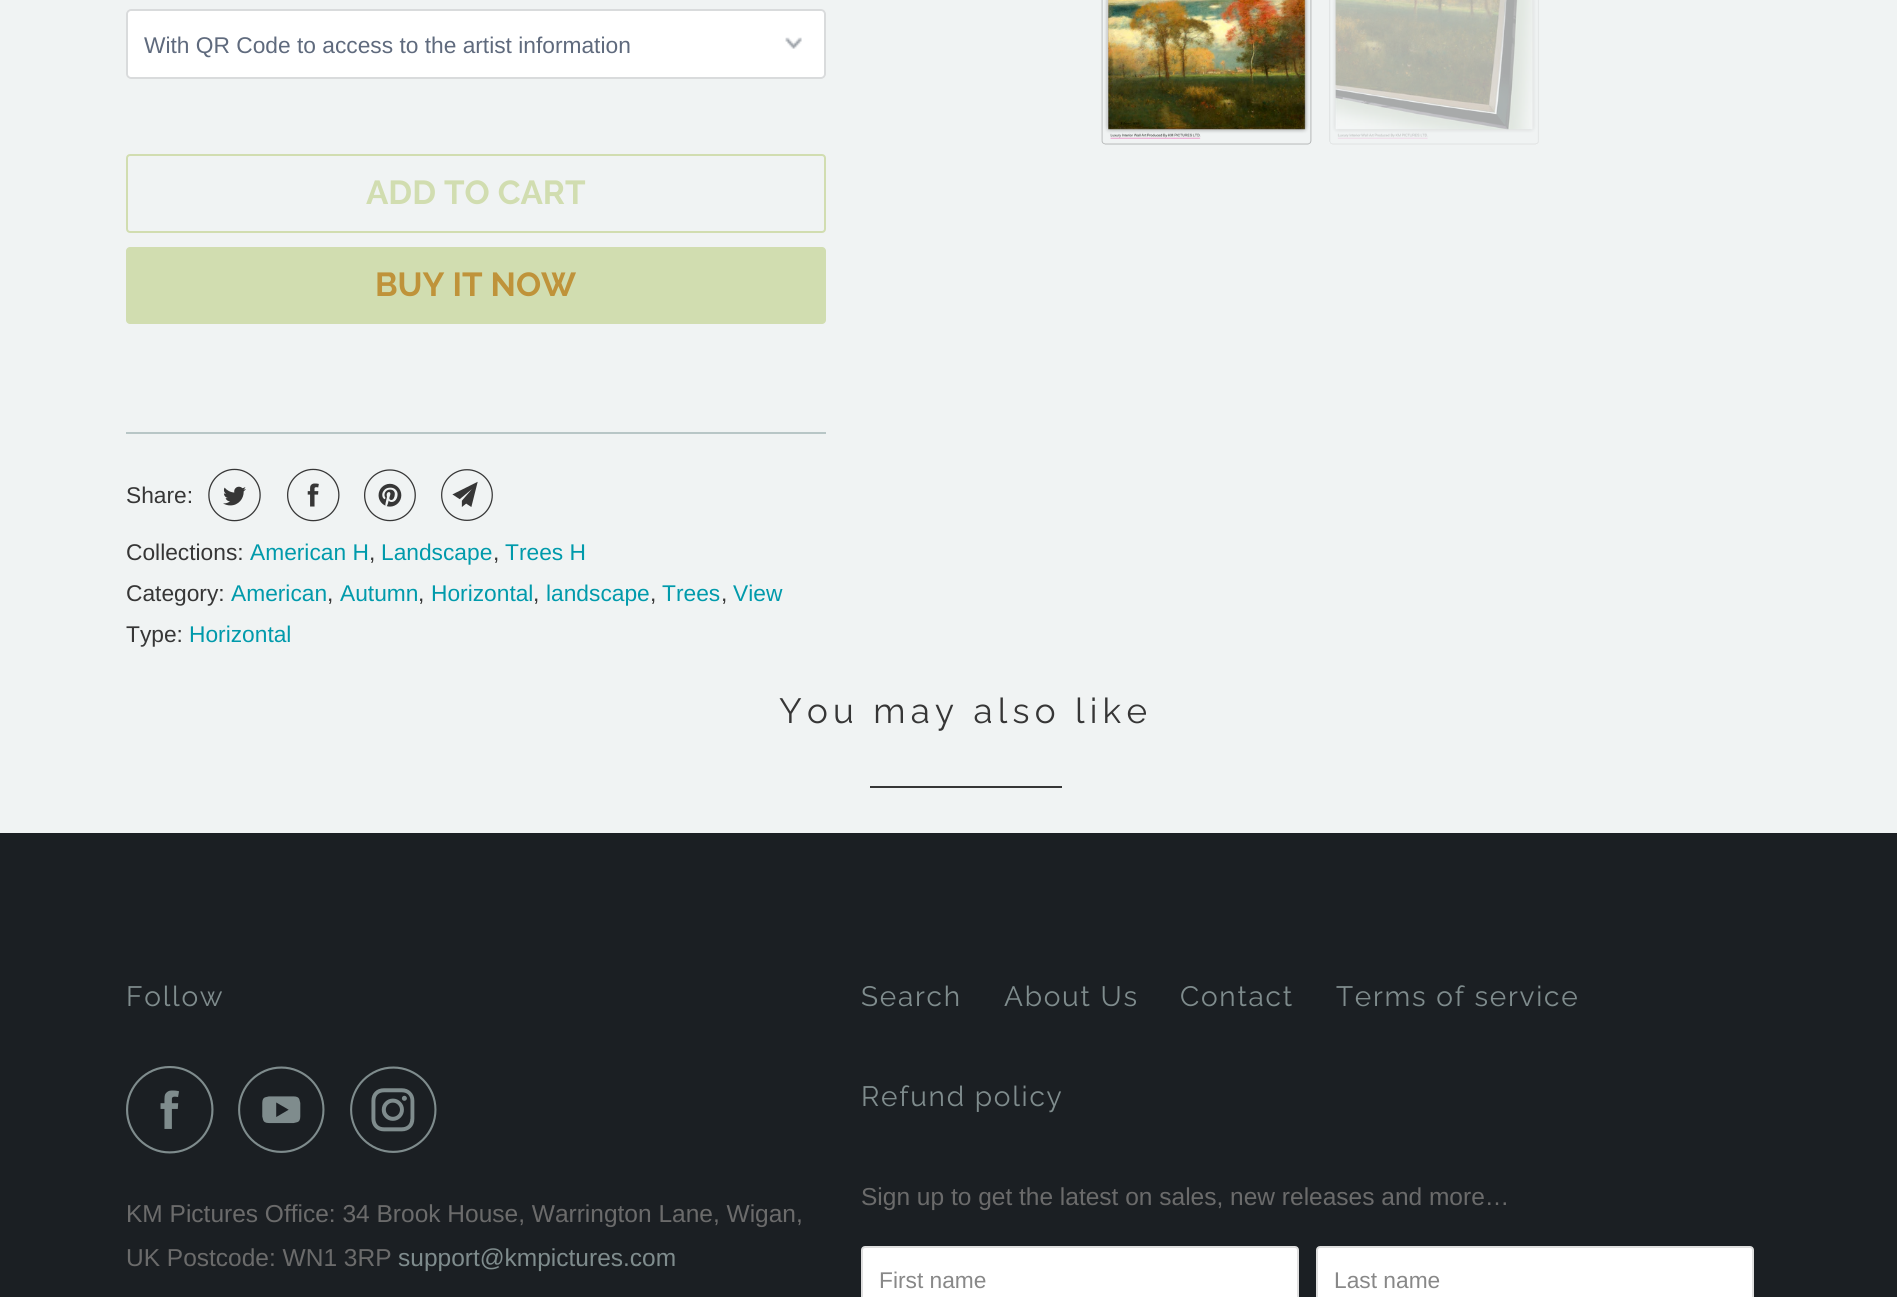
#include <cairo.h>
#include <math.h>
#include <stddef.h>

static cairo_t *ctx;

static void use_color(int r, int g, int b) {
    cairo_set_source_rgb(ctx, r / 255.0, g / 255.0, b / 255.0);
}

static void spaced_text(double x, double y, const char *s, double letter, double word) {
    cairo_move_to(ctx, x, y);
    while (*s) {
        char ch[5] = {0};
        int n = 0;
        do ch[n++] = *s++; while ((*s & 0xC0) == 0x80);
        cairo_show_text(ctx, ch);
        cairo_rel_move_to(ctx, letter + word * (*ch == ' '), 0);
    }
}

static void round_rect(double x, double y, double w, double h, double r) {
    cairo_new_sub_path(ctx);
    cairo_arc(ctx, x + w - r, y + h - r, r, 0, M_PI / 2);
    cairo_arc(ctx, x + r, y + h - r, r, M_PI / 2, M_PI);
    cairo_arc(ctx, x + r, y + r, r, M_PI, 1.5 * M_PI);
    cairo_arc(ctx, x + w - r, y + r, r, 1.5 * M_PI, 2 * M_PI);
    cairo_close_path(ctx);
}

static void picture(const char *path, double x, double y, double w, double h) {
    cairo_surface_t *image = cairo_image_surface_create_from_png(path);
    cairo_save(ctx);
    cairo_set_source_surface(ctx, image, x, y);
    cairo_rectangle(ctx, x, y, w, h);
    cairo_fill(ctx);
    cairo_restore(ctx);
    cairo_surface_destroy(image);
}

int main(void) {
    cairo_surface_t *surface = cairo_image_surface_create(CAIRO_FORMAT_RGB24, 1897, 1297);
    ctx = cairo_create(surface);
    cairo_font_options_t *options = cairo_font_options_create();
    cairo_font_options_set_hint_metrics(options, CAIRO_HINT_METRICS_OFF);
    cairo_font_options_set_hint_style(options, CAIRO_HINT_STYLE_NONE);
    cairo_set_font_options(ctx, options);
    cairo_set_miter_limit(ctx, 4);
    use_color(27, 31, 35);
    cairo_paint(ctx);
    use_color(240, 243, 243);
    cairo_rectangle(ctx, 0, 0, 1897, 833);
    cairo_fill(ctx);
    use_color(255, 255, 255);
    round_rect(126, 9, 700, 70, 5);
    cairo_fill(ctx);
    picture("img1.png", 785, 37, 17, 12);
    round_rect(127, 10, 698, 68, 4);
    use_color(217, 219, 220);
    cairo_stroke(ctx);
    cairo_select_font_face(ctx, "Liberation Sans", CAIRO_FONT_SLANT_NORMAL, CAIRO_FONT_WEIGHT_NORMAL);
    cairo_set_font_size(ctx, 22.75);
    use_color(95, 106, 125);
    cairo_move_to(ctx, 144, 53);
    cairo_show_text(ctx, "With QR Code to access to the artist information");
    round_rect(127, 155, 698, 77, 3);
    use_color(209, 221, 176);
    cairo_stroke(ctx);
    cairo_select_font_face(ctx, "Raleway", CAIRO_FONT_SLANT_NORMAL, CAIRO_FONT_WEIGHT_BOLD);
    cairo_set_font_size(ctx, 33.25);
    cairo_move_to(ctx, 366, 204);
    cairo_show_text(ctx, "ADD TO CART");
    round_rect(126, 247, 700, 77, 4);
    cairo_fill(ctx);
    use_color(191, 147, 58);
    cairo_move_to(ctx, 375, 296);
    cairo_show_text(ctx, "BUY IT NOW");
    use_color(184, 198, 198);
    cairo_rectangle(ctx, 126, 432, 700, 2);
    cairo_fill(ctx);
    cairo_select_font_face(ctx, "Liberation Sans", CAIRO_FONT_SLANT_NORMAL, CAIRO_FONT_WEIGHT_NORMAL);
    cairo_set_font_size(ctx, 22.75);
    use_color(54, 54, 54);
    cairo_move_to(ctx, 126, 503);
    cairo_show_text(ctx, "Share:");
    picture("img2.png", 208, 468, 53, 54);
    picture("img3.png", 287, 468, 53, 54);
    picture("img4.png", 364, 469, 52, 53);
    picture("img5.png", 441, 469, 52, 52);
    cairo_move_to(ctx, 126, 560);
    cairo_show_text(ctx, "Collections:");
    use_color(0, 154, 171);
    cairo_move_to(ctx, 250, 560);
    cairo_show_text(ctx, "American H");
    use_color(54, 54, 54);
    cairo_move_to(ctx, 369, 560);
    cairo_show_text(ctx, ",");
    use_color(0, 154, 171);
    cairo_move_to(ctx, 381, 560);
    cairo_show_text(ctx, "Landscape");
    use_color(54, 54, 54);
    cairo_move_to(ctx, 493, 560);
    cairo_show_text(ctx, ",");
    use_color(0, 154, 171);
    cairo_move_to(ctx, 505, 560);
    cairo_show_text(ctx, "Trees H");
    use_color(54, 54, 54);
    cairo_move_to(ctx, 126, 601);
    cairo_show_text(ctx, "Category:");
    use_color(0, 154, 171);
    cairo_move_to(ctx, 231, 601);
    cairo_show_text(ctx, "American");
    use_color(54, 54, 54);
    cairo_move_to(ctx, 327, 601);
    cairo_show_text(ctx, ",");
    use_color(0, 154, 171);
    cairo_move_to(ctx, 340, 601);
    cairo_show_text(ctx, "Autumn");
    use_color(54, 54, 54);
    cairo_move_to(ctx, 418, 601);
    cairo_show_text(ctx, ",");
    use_color(0, 154, 171);
    cairo_move_to(ctx, 431, 601);
    cairo_show_text(ctx, "Horizontal");
    use_color(54, 54, 54);
    cairo_move_to(ctx, 533, 601);
    cairo_show_text(ctx, ",");
    use_color(0, 154, 171);
    cairo_move_to(ctx, 546, 601);
    cairo_show_text(ctx, "landscape");
    use_color(54, 54, 54);
    cairo_move_to(ctx, 650, 601);
    cairo_show_text(ctx, ",");
    use_color(0, 154, 171);
    cairo_move_to(ctx, 662, 601);
    cairo_show_text(ctx, "Trees");
    use_color(54, 54, 54);
    cairo_move_to(ctx, 721, 601);
    cairo_show_text(ctx, ",");
    use_color(0, 154, 171);
    cairo_move_to(ctx, 733, 601);
    cairo_show_text(ctx, "View");
    use_color(54, 54, 54);
    cairo_move_to(ctx, 126, 642);
    cairo_show_text(ctx, "Type:");
    use_color(0, 154, 171);
    cairo_move_to(ctx, 189, 642);
    cairo_show_text(ctx, "Horizontal");
    picture("img6.png", 1101, 0, 211, 145);
    picture("img7.png", 1329, 0, 210, 145);
    cairo_select_font_face(ctx, "Raleway", CAIRO_FONT_SLANT_NORMAL, CAIRO_FONT_WEIGHT_NORMAL);
    cairo_set_font_size(ctx, 35);
    use_color(54, 54, 54);
    spaced_text(779, 723, "You may also like", 5.25, 0);
    cairo_rectangle(ctx, 870, 786, 192, 2);
    cairo_fill(ctx);
    cairo_set_font_size(ctx, 28);
    use_color(127, 140, 141);
    spaced_text(126, 1006, "Follow", 1.75, 0);
    picture("img8.png", 126, 1066, 88, 88);
    picture("img9.png", 238, 1066, 87, 87);
    picture("img10.png", 350, 1066, 87, 87);
    cairo_select_font_face(ctx, "Liberation Sans", CAIRO_FONT_SLANT_NORMAL, CAIRO_FONT_WEIGHT_NORMAL);
    cairo_set_font_size(ctx, 24.5);
    use_color(107, 107, 107);
    cairo_move_to(ctx, 126, 1222);
    cairo_show_text(ctx, "KM Pictures Office: 34 Brook House, Warrington Lane, Wigan,");
    cairo_move_to(ctx, 126, 1266);
    cairo_show_text(ctx, "UK Postcode: WN1 3RP");
    use_color(127, 140, 141);
    cairo_move_to(ctx, 398, 1266);
    cairo_show_text(ctx, "support@kmpictures.com");
    cairo_select_font_face(ctx, "Raleway", CAIRO_FONT_SLANT_NORMAL, CAIRO_FONT_WEIGHT_NORMAL);
    cairo_set_font_size(ctx, 28);
    spaced_text(861, 1006, "Search", 1.75, 0);
    spaced_text(1004, 1006, "About Us", 1.75, 0);
    spaced_text(1180, 1006, "Contact", 1.75, 0);
    spaced_text(1336, 1006, "Terms of service", 1.75, 0);
    spaced_text(861, 1106, "Refund policy", 1.75, 0);
    cairo_select_font_face(ctx, "Liberation Sans", CAIRO_FONT_SLANT_NORMAL, CAIRO_FONT_WEIGHT_NORMAL);
    cairo_set_font_size(ctx, 24.5);
    use_color(107, 107, 107);
    cairo_move_to(ctx, 861, 1205);
    cairo_show_text(ctx, "Sign up to get the latest on sales, new releases and more…");
    use_color(255, 255, 255);
    round_rect(862, 1247, 436, 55, 3);
    cairo_fill_preserve(ctx);
    use_color(223, 223, 223);
    cairo_stroke(ctx);
    cairo_set_font_size(ctx, 22.75);
    use_color(136, 136, 136);
    cairo_move_to(ctx, 879, 1288);
    cairo_show_text(ctx, "First name");
    use_color(255, 255, 255);
    round_rect(1317, 1247, 436, 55, 3);
    cairo_fill_preserve(ctx);
    use_color(223, 223, 223);
    cairo_stroke(ctx);
    use_color(136, 136, 136);
    cairo_move_to(ctx, 1334, 1288);
    cairo_show_text(ctx, "Last name");
    cairo_surface_write_to_png(surface, "result.png");
    cairo_font_options_destroy(options);
    cairo_destroy(ctx);
    cairo_surface_destroy(surface);
    return 0;
}
